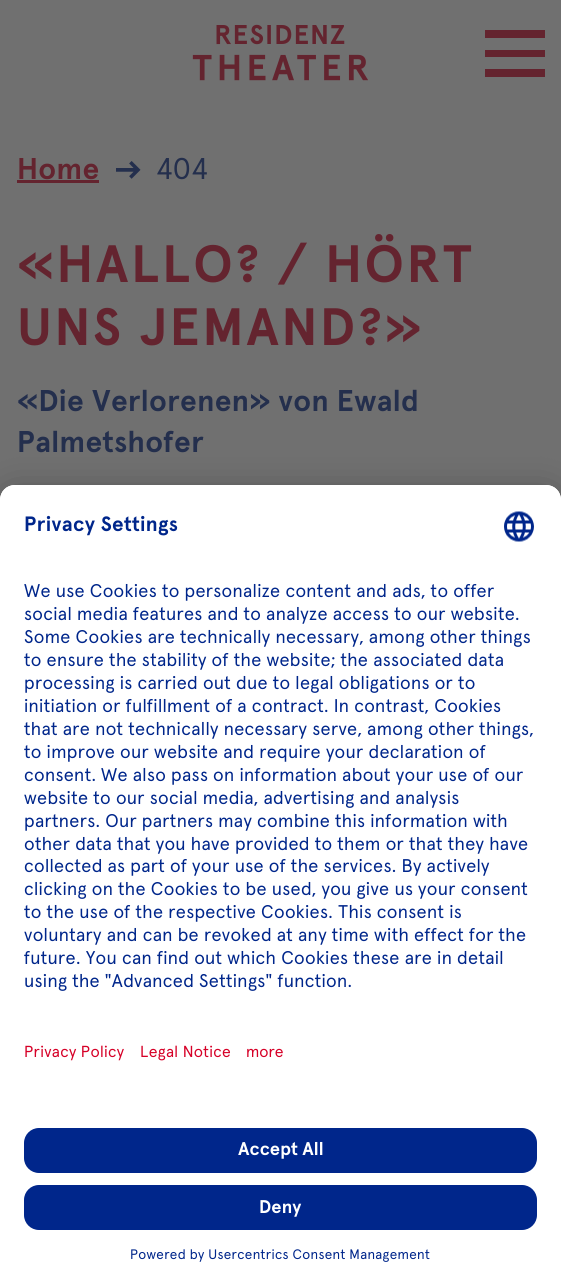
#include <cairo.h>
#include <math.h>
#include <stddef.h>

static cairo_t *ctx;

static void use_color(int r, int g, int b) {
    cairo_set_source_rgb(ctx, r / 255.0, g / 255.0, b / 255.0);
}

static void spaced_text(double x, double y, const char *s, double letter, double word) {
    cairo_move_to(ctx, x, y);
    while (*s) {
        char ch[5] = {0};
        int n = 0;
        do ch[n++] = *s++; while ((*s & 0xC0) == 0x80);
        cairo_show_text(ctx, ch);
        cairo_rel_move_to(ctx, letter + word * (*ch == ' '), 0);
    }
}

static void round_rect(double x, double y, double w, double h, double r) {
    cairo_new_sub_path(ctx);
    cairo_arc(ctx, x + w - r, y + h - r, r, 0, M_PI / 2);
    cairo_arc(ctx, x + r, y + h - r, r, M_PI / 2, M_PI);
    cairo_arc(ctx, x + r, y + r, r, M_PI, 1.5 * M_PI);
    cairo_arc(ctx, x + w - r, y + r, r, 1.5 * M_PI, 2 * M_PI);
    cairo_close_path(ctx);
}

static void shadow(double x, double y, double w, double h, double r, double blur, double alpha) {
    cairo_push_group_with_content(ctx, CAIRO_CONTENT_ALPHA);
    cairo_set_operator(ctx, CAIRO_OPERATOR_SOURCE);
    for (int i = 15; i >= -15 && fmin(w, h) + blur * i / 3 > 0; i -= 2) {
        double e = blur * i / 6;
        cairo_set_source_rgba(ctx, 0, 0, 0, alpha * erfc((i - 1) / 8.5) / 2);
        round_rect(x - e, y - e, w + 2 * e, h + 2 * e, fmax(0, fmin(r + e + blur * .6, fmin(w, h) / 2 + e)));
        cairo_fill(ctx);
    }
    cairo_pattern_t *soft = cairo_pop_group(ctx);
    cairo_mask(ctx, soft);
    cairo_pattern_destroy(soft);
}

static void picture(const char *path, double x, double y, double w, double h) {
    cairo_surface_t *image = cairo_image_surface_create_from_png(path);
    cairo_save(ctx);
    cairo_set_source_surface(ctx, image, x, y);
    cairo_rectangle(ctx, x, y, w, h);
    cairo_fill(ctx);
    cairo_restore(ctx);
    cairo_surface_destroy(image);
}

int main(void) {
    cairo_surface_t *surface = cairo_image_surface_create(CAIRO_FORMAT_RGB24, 561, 1288);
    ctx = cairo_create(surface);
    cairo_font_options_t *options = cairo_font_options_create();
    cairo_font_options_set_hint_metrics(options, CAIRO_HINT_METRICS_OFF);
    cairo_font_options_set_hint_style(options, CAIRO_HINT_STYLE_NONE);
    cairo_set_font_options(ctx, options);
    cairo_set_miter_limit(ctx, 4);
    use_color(112, 112, 112);
    cairo_paint(ctx);
    picture("img1.png", 192, 24, 176, 57);
    use_color(100, 36, 47);
    cairo_rectangle(ctx, 485, 50, 60, 7);
    cairo_fill(ctx);
    cairo_rectangle(ctx, 485, 30, 60, 8);
    cairo_fill(ctx);
    cairo_rectangle(ctx, 485, 69, 60, 8);
    cairo_fill(ctx);
    cairo_select_font_face(ctx, "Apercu", CAIRO_FONT_SLANT_NORMAL, CAIRO_FONT_WEIGHT_BOLD);
    cairo_set_font_size(ctx, 30);
    spaced_text(17, 179, "Home", 0.3, 0);
    cairo_rectangle(ctx, 17, 180, 82, 3);
    cairo_fill(ctx);
    picture("img2.png", 116, 161, 25, 18);
    cairo_select_font_face(ctx, "Apercu", CAIRO_FONT_SLANT_NORMAL, CAIRO_FONT_WEIGHT_NORMAL);
    use_color(36, 47, 77);
    spaced_text(156, 179, "404", 0.3, 0);
    cairo_select_font_face(ctx, "Apercu", CAIRO_FONT_SLANT_NORMAL, CAIRO_FONT_WEIGHT_BOLD);
    cairo_set_font_size(ctx, 52.5);
    use_color(100, 36, 47);
    spaced_text(17, 282, "«HALLO? / HÖRT", 2.6, 0);
    spaced_text(17, 345, "UNS JEMAND?»", 2.6, 0);
    cairo_set_font_size(ctx, 30);
    use_color(36, 47, 77);
    spaced_text(17, 411, "«Die Verlorenen» von Ewald", 0.3, 0);
    spaced_text(17, 452, "Palmetshofer", 0.3, 0);
    use_color(0, 0, 0);
    shadow(0, 515, 561, 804, 15, 21, 0.3);
    shadow(0, 492, 561, 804, 15, 19.5, 0.22);
    use_color(255, 255, 255);
    cairo_new_path(ctx);
    cairo_move_to(ctx, 15, 485);
    cairo_line_to(ctx, 546, 485);
    cairo_curve_to(ctx, 554.5, 485, 561, 491.5, 561, 500);
    cairo_line_to(ctx, 561, 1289);
    cairo_line_to(ctx, 0, 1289);
    cairo_line_to(ctx, 0, 500);
    cairo_curve_to(ctx, 0, 491.5, 6.5, 485, 15, 485);
    cairo_close_path(ctx);
    cairo_fill(ctx);
    cairo_new_path(ctx);
    cairo_move_to(ctx, 15, 485);
    cairo_line_to(ctx, 546, 485);
    cairo_curve_to(ctx, 554.5, 485, 561, 491.5, 561, 500);
    cairo_line_to(ctx, 561, 1110);
    cairo_line_to(ctx, 0, 1110);
    cairo_line_to(ctx, 0, 500);
    cairo_curve_to(ctx, 0, 491.5, 6.5, 485, 15, 485);
    cairo_close_path(ctx);
    cairo_fill(ctx);
    cairo_set_font_size(ctx, 20.75);
    use_color(0, 38, 139);
    spaced_text(24, 531, "Privacy Settings", 0.3, 0);
    picture("img3.png", 504, 511, 30, 31);
    cairo_select_font_face(ctx, "Apercu", CAIRO_FONT_SLANT_NORMAL, CAIRO_FONT_WEIGHT_NORMAL);
    cairo_set_font_size(ctx, 18.4);
    spaced_text(24, 597, "We use Cookies to personalize content and ads, to offer", 0.3, 0);
    spaced_text(24, 620, "social media features and to analyze access to our website.", 0.3, 0);
    spaced_text(24, 643, "Some Cookies are technically necessary, among other things", 0.3, 0);
    spaced_text(24, 666, "to ensure the stability of the website; the associated data", 0.3, 0);
    spaced_text(24, 689, "processing is carried out due to legal obligations or to", 0.3, 0);
    spaced_text(24, 712, "initiation or fulfillment of a contract. In contrast, Cookies", 0.3, 0);
    spaced_text(24, 735, "that are not technically necessary serve, among other things,", 0.3, 0);
    spaced_text(24, 758, "to improve our website and require your declaration of", 0.3, 0);
    spaced_text(24, 781, "consent. We also pass on information about your use of our", 0.3, 0);
    spaced_text(24, 804, "website to our social media, advertising and analysis", 0.3, 0);
    spaced_text(24, 827, "partners. Our partners may combine this information with", 0.3, 0);
    spaced_text(24, 850, "other data that you have provided to them or that they have", 0.3, 0);
    spaced_text(24, 872, "collected as part of your use of the services. By actively", 0.3, 0);
    spaced_text(24, 895, "clicking on the Cookies to be used, you give us your consent", 0.3, 0);
    spaced_text(24, 918, "to the use of the respective Cookies. This consent is", 0.3, 0);
    spaced_text(24, 941, "voluntary and can be revoked at any time with effect for the", 0.3, 0);
    spaced_text(24, 964, "future. You can find out which Cookies these are in detail", 0.3, 0);
    spaced_text(24, 987, "using the \"Advanced Settings\" function.", 0.3, 0);
    cairo_set_font_size(ctx, 16);
    use_color(214, 0, 39);
    spaced_text(24, 1057, "Privacy Policy", 0.3, 0);
    spaced_text(140, 1057, "Legal Notice", 0.3, 0);
    cairo_move_to(ctx, 246, 1057);
    cairo_show_text(ctx, "more");
    use_color(0, 38, 139);
    round_rect(24, 1128, 513, 45, 15);
    cairo_fill(ctx);
    cairo_select_font_face(ctx, "Apercu", CAIRO_FONT_SLANT_NORMAL, CAIRO_FONT_WEIGHT_BOLD);
    cairo_set_font_size(ctx, 18.4);
    use_color(255, 255, 255);
    cairo_move_to(ctx, 238, 1155);
    cairo_show_text(ctx, "Accept All");
    use_color(0, 38, 139);
    round_rect(24, 1185, 513, 45, 15);
    cairo_fill(ctx);
    use_color(255, 255, 255);
    cairo_move_to(ctx, 259, 1213);
    cairo_show_text(ctx, "Deny");
    cairo_select_font_face(ctx, "Apercu", CAIRO_FONT_SLANT_NORMAL, CAIRO_FONT_WEIGHT_NORMAL);
    cairo_set_font_size(ctx, 13.75);
    use_color(0, 38, 139);
    spaced_text(130, 1259, "Powered by Usercentrics Consent Management", 0.3, 0);
    cairo_surface_write_to_png(surface, "result.png");
    cairo_font_options_destroy(options);
    cairo_destroy(ctx);
    cairo_surface_destroy(surface);
    return 0;
}
